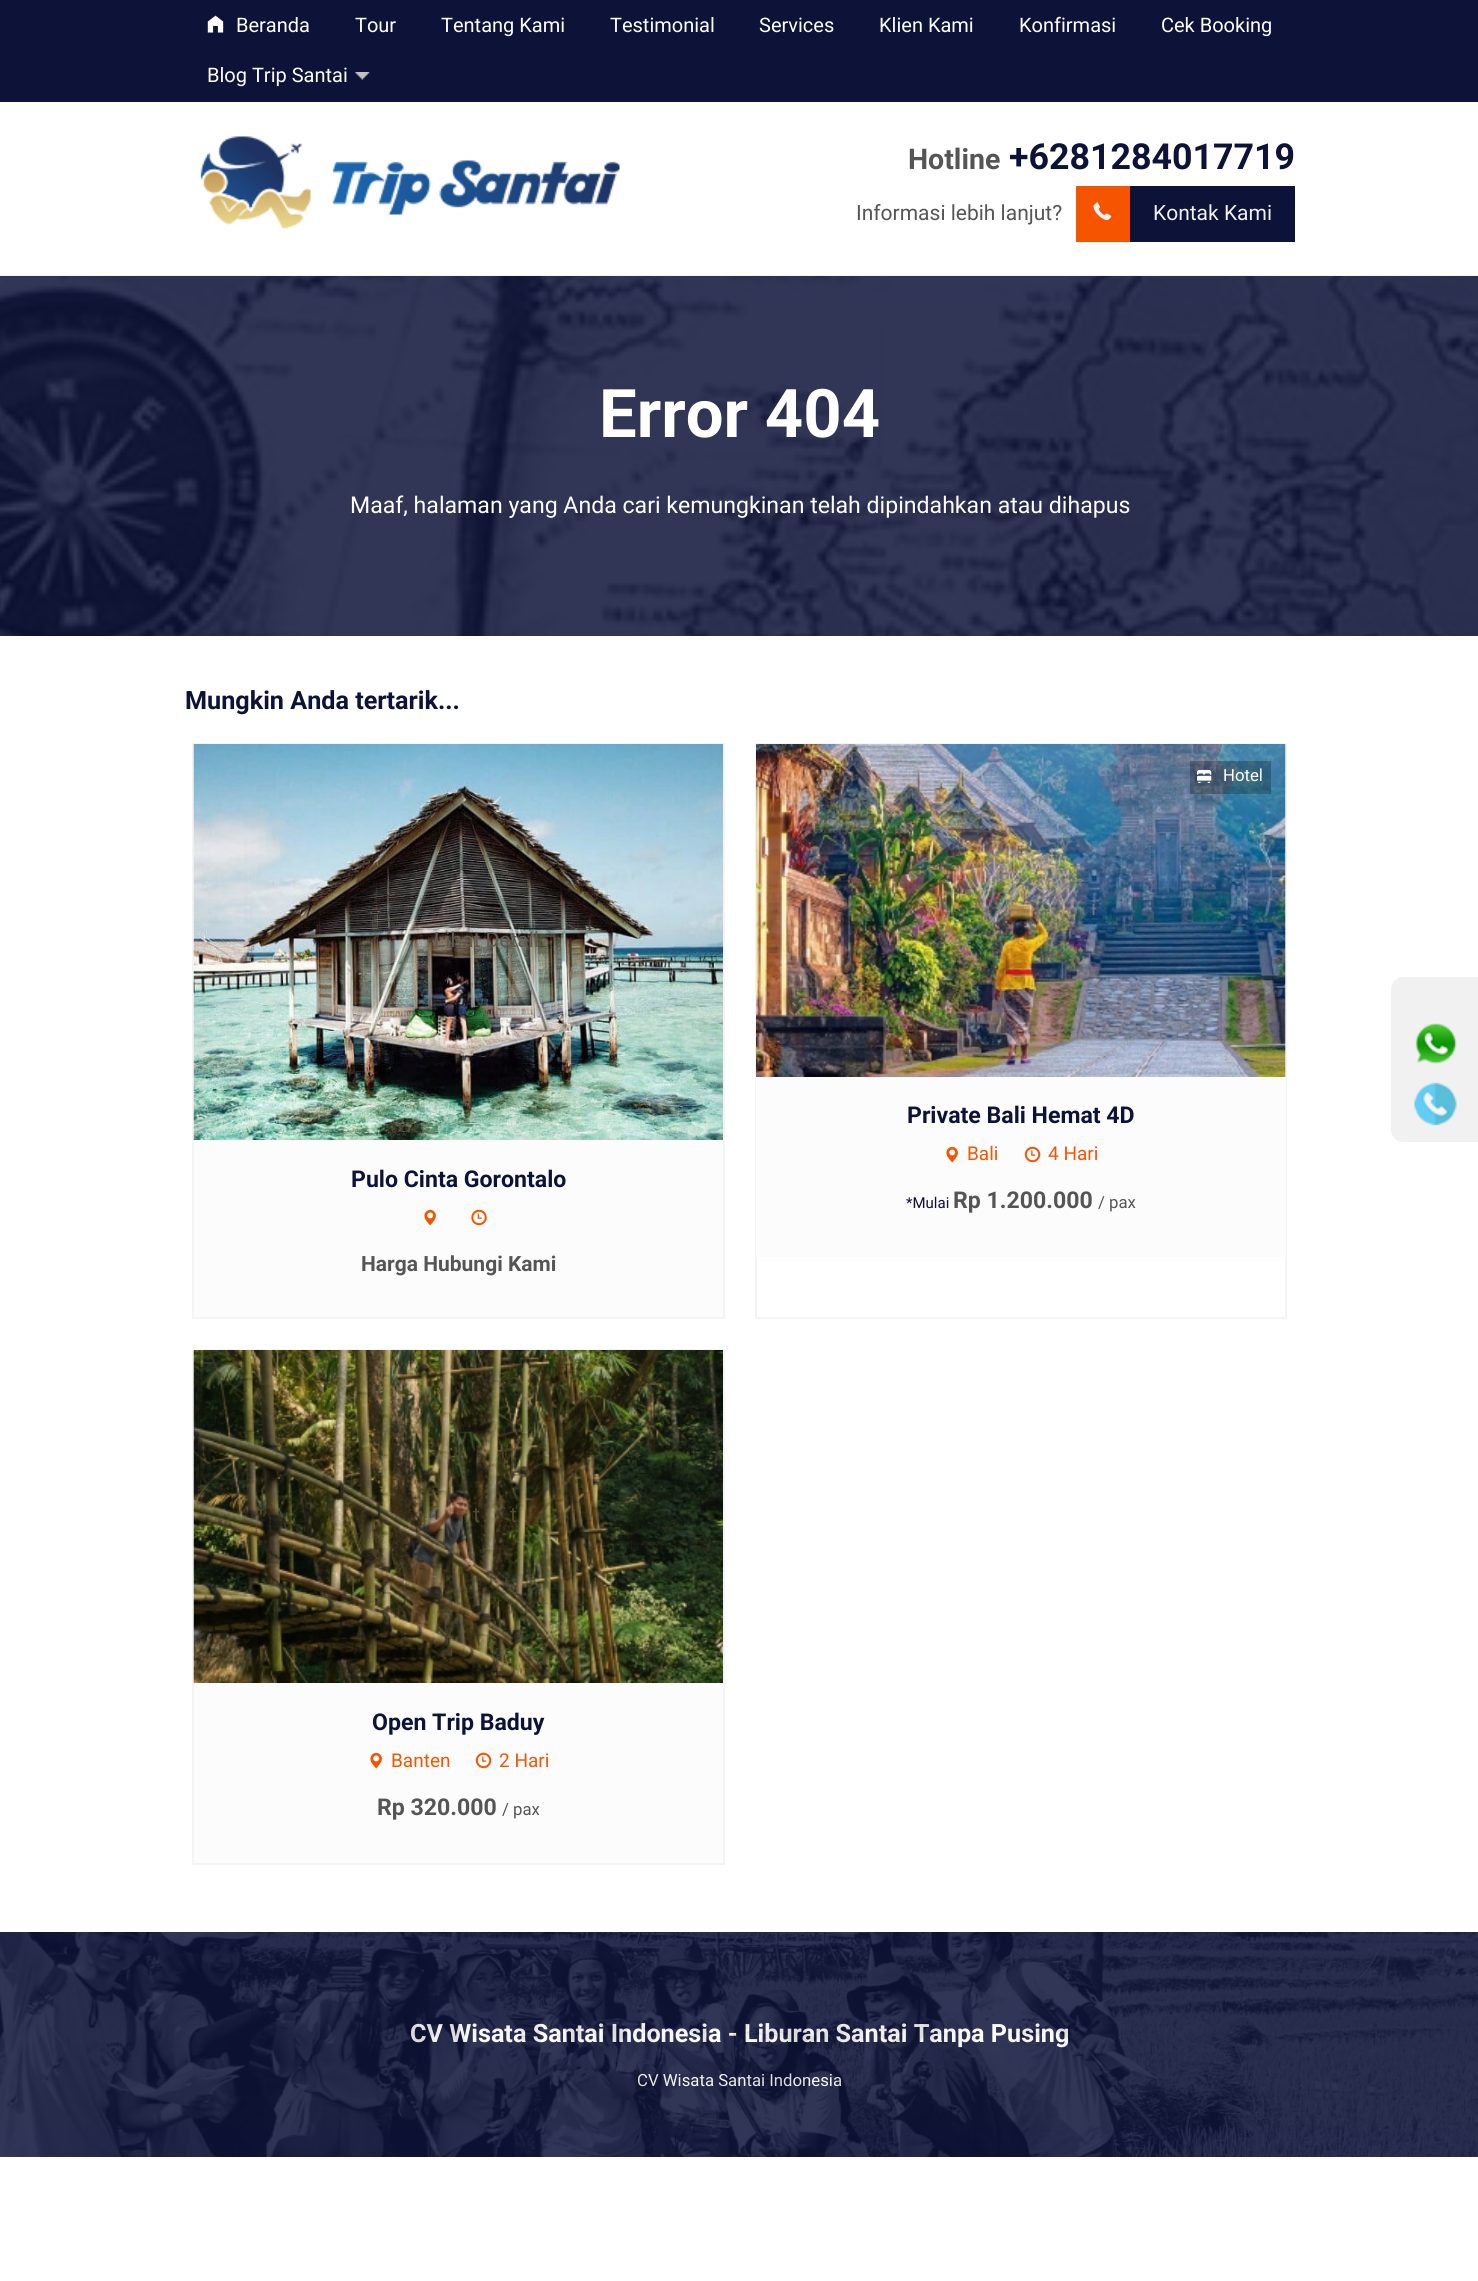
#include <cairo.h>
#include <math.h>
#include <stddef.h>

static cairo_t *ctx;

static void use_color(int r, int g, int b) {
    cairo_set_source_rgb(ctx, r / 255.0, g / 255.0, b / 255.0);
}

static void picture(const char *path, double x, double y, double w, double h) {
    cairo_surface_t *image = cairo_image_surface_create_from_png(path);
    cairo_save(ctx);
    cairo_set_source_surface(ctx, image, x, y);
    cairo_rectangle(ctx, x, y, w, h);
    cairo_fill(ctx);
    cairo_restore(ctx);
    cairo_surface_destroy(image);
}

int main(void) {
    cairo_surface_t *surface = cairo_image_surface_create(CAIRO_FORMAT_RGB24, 1478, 2281);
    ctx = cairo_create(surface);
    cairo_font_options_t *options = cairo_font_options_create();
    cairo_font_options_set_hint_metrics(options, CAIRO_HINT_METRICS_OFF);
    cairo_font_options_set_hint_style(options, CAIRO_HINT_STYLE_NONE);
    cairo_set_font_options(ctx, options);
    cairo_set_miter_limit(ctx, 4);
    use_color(255, 255, 255);
    cairo_paint(ctx);
    use_color(13, 18, 56);
    cairo_rectangle(ctx, 0, 0, 1478, 102);
    cairo_fill(ctx);
    picture("img1.png", 207, 15, 17, 18);
    cairo_select_font_face(ctx, "Roboto", CAIRO_FONT_SLANT_NORMAL, CAIRO_FONT_WEIGHT_NORMAL);
    cairo_set_font_size(ctx, 20);
    use_color(255, 255, 255);
    cairo_move_to(ctx, 236, 32);
    cairo_show_text(ctx, "Beranda");
    cairo_move_to(ctx, 355, 32);
    cairo_show_text(ctx, "Tour");
    cairo_move_to(ctx, 441, 32);
    cairo_show_text(ctx, "Tentang Kami");
    cairo_move_to(ctx, 610, 32);
    cairo_show_text(ctx, "Testimonial");
    cairo_move_to(ctx, 759, 32);
    cairo_show_text(ctx, "Services");
    cairo_move_to(ctx, 879, 32);
    cairo_show_text(ctx, "Klien Kami");
    cairo_move_to(ctx, 1019, 32);
    cairo_show_text(ctx, "Konfirmasi");
    cairo_move_to(ctx, 1161, 32);
    cairo_show_text(ctx, "Cek Booking");
    picture("img2.png", 355, 72, 15, 8);
    cairo_move_to(ctx, 207, 82);
    cairo_show_text(ctx, "Blog Trip Santai");
    use_color(244, 244, 244);
    cairo_rectangle(ctx, 0, 275, 1478, 1);
    cairo_fill(ctx);
    picture("img3.png", 200, 136, 420, 93);
    cairo_select_font_face(ctx, "Roboto", CAIRO_FONT_SLANT_NORMAL, CAIRO_FONT_WEIGHT_BOLD);
    cairo_set_font_size(ctx, 28.5);
    use_color(85, 85, 85);
    cairo_move_to(ctx, 908, 169);
    cairo_show_text(ctx, "Hotline");
    cairo_set_font_size(ctx, 35.75);
    use_color(13, 18, 56);
    cairo_move_to(ctx, 1009, 169);
    cairo_show_text(ctx, "+6281284017719");
    cairo_select_font_face(ctx, "Roboto", CAIRO_FONT_SLANT_NORMAL, CAIRO_FONT_WEIGHT_NORMAL);
    cairo_set_font_size(ctx, 21);
    use_color(85, 85, 85);
    cairo_move_to(ctx, 856, 220);
    cairo_show_text(ctx, "Informasi lebih lanjut?");
    use_color(13, 18, 56);
    cairo_rectangle(ctx, 1130, 186, 165, 56);
    cairo_fill(ctx);
    use_color(247, 84, 0);
    cairo_rectangle(ctx, 1076, 186, 54, 56);
    cairo_fill(ctx);
    picture("img4.png", 1093, 202, 19, 19);
    use_color(241, 241, 241);
    cairo_move_to(ctx, 1153, 220);
    cairo_show_text(ctx, "Kontak Kami");
    use_color(13, 18, 56);
    cairo_rectangle(ctx, 0, 276, 1478, 360);
    cairo_fill(ctx);
    picture("img5.png", 0, 276, 1478, 360);
    cairo_select_font_face(ctx, "Roboto", CAIRO_FONT_SLANT_NORMAL, CAIRO_FONT_WEIGHT_BOLD);
    cairo_set_font_size(ctx, 67);
    use_color(255, 255, 255);
    cairo_move_to(ctx, 599, 437);
    cairo_show_text(ctx, "Error 404");
    cairo_select_font_face(ctx, "Roboto", CAIRO_FONT_SLANT_NORMAL, CAIRO_FONT_WEIGHT_NORMAL);
    cairo_set_font_size(ctx, 23.1);
    cairo_move_to(ctx, 350, 513);
    cairo_show_text(ctx, "Maaf, halaman yang Anda cari kemungkinan telah dipindahkan atau dihapus");
    cairo_select_font_face(ctx, "Roboto", CAIRO_FONT_SLANT_NORMAL, CAIRO_FONT_WEIGHT_BOLD);
    cairo_set_font_size(ctx, 25.2);
    use_color(13, 18, 56);
    cairo_move_to(ctx, 185, 709);
    cairo_show_text(ctx, "Mungkin Anda tertarik...");
    cairo_rectangle(ctx, 193, 744, 531, 574);
    use_color(244, 244, 244);
    cairo_stroke(ctx);
    picture("img6.png", 193, 744, 530, 396);
    cairo_select_font_face(ctx, "Roboto", CAIRO_FONT_SLANT_NORMAL, CAIRO_FONT_WEIGHT_NORMAL);
    cairo_set_font_size(ctx, 21);
    use_color(97, 92, 81);
    cairo_move_to(ctx, 434, 947);
    cairo_show_text(ctx, "Lihat Detail");
    use_color(252, 252, 252);
    cairo_rectangle(ctx, 194, 1140, 529, 177);
    cairo_fill(ctx);
    cairo_select_font_face(ctx, "Roboto", CAIRO_FONT_SLANT_NORMAL, CAIRO_FONT_WEIGHT_BOLD);
    cairo_set_font_size(ctx, 23.1);
    use_color(13, 18, 56);
    cairo_move_to(ctx, 351, 1187);
    cairo_show_text(ctx, "Pulo Cinta Gorontalo");
    picture("img7.png", 424, 1209, 12, 17);
    picture("img8.png", 471, 1209, 16, 17);
    cairo_set_font_size(ctx, 21);
    use_color(85, 85, 85);
    cairo_move_to(ctx, 361, 1271);
    cairo_show_text(ctx, "Harga Hubungi Kami");
    cairo_rectangle(ctx, 756, 744, 530, 574);
    use_color(244, 244, 244);
    cairo_stroke(ctx);
    picture("img10.png", 756, 744, 530, 333);
    cairo_set_source_rgba(ctx, 0, 0, 0, 0.25);
    cairo_rectangle(ctx, 1190, 761, 81, 33);
    cairo_fill(ctx);
    picture("img9.png", 1197, 769, 15, 14);
    cairo_select_font_face(ctx, "Roboto", CAIRO_FONT_SLANT_NORMAL, CAIRO_FONT_WEIGHT_NORMAL);
    cairo_set_font_size(ctx, 16.75);
    use_color(255, 255, 255);
    cairo_move_to(ctx, 1223, 781);
    cairo_show_text(ctx, "Hotel");
    cairo_set_font_size(ctx, 21);
    use_color(115, 118, 110);
    cairo_move_to(ctx, 1091, 915);
    cairo_show_text(ctx, "i");
    use_color(252, 252, 252);
    cairo_rectangle(ctx, 756, 1077, 530, 180);
    cairo_fill(ctx);
    cairo_select_font_face(ctx, "Roboto", CAIRO_FONT_SLANT_NORMAL, CAIRO_FONT_WEIGHT_BOLD);
    cairo_set_font_size(ctx, 23.1);
    use_color(13, 18, 56);
    cairo_move_to(ctx, 907, 1123);
    cairo_show_text(ctx, "Private Bali Hemat 4D");
    picture("img7.png", 946, 1146, 12, 17);
    cairo_select_font_face(ctx, "Roboto", CAIRO_FONT_SLANT_NORMAL, CAIRO_FONT_WEIGHT_NORMAL);
    cairo_set_font_size(ctx, 19);
    use_color(247, 84, 0);
    cairo_move_to(ctx, 967, 1160);
    cairo_show_text(ctx, "Bali");
    picture("img11.png", 1024, 1146, 17, 17);
    cairo_move_to(ctx, 1048, 1160);
    cairo_show_text(ctx, "4 Hari");
    cairo_set_font_size(ctx, 15);
    use_color(13, 18, 56);
    cairo_move_to(ctx, 906, 1208);
    cairo_show_text(ctx, "*Mulai");
    cairo_select_font_face(ctx, "Roboto", CAIRO_FONT_SLANT_NORMAL, CAIRO_FONT_WEIGHT_BOLD);
    cairo_set_font_size(ctx, 23.1);
    use_color(85, 85, 85);
    cairo_move_to(ctx, 953, 1208);
    cairo_show_text(ctx, "Rp 1.200.000");
    cairo_select_font_face(ctx, "Roboto", CAIRO_FONT_SLANT_NORMAL, CAIRO_FONT_WEIGHT_NORMAL);
    cairo_set_font_size(ctx, 16.75);
    cairo_move_to(ctx, 1098, 1208);
    cairo_show_text(ctx, "/ pax");
    cairo_rectangle(ctx, 193, 1350, 531, 514);
    use_color(244, 244, 244);
    cairo_stroke(ctx);
    picture("img12.png", 193, 1350, 530, 333);
    cairo_set_font_size(ctx, 21);
    use_color(83, 70, 43);
    cairo_move_to(ctx, 473, 1522);
    cairo_show_text(ctx, "t");
    cairo_move_to(ctx, 510, 1522);
    cairo_show_text(ctx, "t");
    use_color(252, 252, 252);
    cairo_rectangle(ctx, 194, 1683, 529, 180);
    cairo_fill(ctx);
    cairo_select_font_face(ctx, "Roboto", CAIRO_FONT_SLANT_NORMAL, CAIRO_FONT_WEIGHT_BOLD);
    cairo_set_font_size(ctx, 23.1);
    use_color(13, 18, 56);
    cairo_move_to(ctx, 372, 1730);
    cairo_show_text(ctx, "Open Trip Baduy");
    picture("img7.png", 370, 1752, 12, 17);
    cairo_select_font_face(ctx, "Roboto", CAIRO_FONT_SLANT_NORMAL, CAIRO_FONT_WEIGHT_NORMAL);
    cairo_set_font_size(ctx, 19);
    use_color(247, 84, 0);
    cairo_move_to(ctx, 391, 1767);
    cairo_show_text(ctx, "Banten");
    picture("img11.png", 475, 1752, 17, 17);
    cairo_move_to(ctx, 499, 1767);
    cairo_show_text(ctx, "2 Hari");
    cairo_select_font_face(ctx, "Roboto", CAIRO_FONT_SLANT_NORMAL, CAIRO_FONT_WEIGHT_BOLD);
    cairo_set_font_size(ctx, 23.1);
    use_color(85, 85, 85);
    cairo_move_to(ctx, 377, 1815);
    cairo_show_text(ctx, "Rp 320.000");
    cairo_select_font_face(ctx, "Roboto", CAIRO_FONT_SLANT_NORMAL, CAIRO_FONT_WEIGHT_NORMAL);
    cairo_set_font_size(ctx, 16.75);
    cairo_move_to(ctx, 502, 1815);
    cairo_show_text(ctx, "/ pax");
    use_color(241, 241, 241);
    cairo_new_path(ctx);
    cairo_move_to(ctx, 1403, 977);
    cairo_line_to(ctx, 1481, 977);
    cairo_line_to(ctx, 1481, 1142);
    cairo_line_to(ctx, 1403, 1142);
    cairo_curve_to(ctx, 1396.5, 1142, 1391, 1136.5, 1391, 1130);
    cairo_line_to(ctx, 1391, 989);
    cairo_curve_to(ctx, 1391, 982.5, 1396.5, 977, 1403, 977);
    cairo_close_path(ctx);
    cairo_fill(ctx);
    picture("img13.png", 1415, 1023, 42, 41);
    picture("img14.png", 1414, 1082, 43, 44);
    use_color(13, 18, 56);
    cairo_rectangle(ctx, 0, 1932, 1478, 225);
    cairo_fill(ctx);
    cairo_select_font_face(ctx, "Roboto", CAIRO_FONT_SLANT_NORMAL, CAIRO_FONT_WEIGHT_BOLD);
    cairo_set_font_size(ctx, 25.2);
    use_color(255, 255, 255);
    cairo_move_to(ctx, 410, 2042);
    cairo_show_text(ctx, "CV Wisata Santai Indonesia - Liburan Santai Tanpa Pusing");
    cairo_select_font_face(ctx, "Roboto", CAIRO_FONT_SLANT_NORMAL, CAIRO_FONT_WEIGHT_NORMAL);
    cairo_set_font_size(ctx, 16.75);
    cairo_move_to(ctx, 637, 2086);
    cairo_show_text(ctx, "CV Wisata Santai Indonesia");
    picture("img15.png", 0, 1932, 1478, 225);
    cairo_surface_write_to_png(surface, "result.png");
    cairo_font_options_destroy(options);
    cairo_destroy(ctx);
    cairo_surface_destroy(surface);
    return 0;
}
